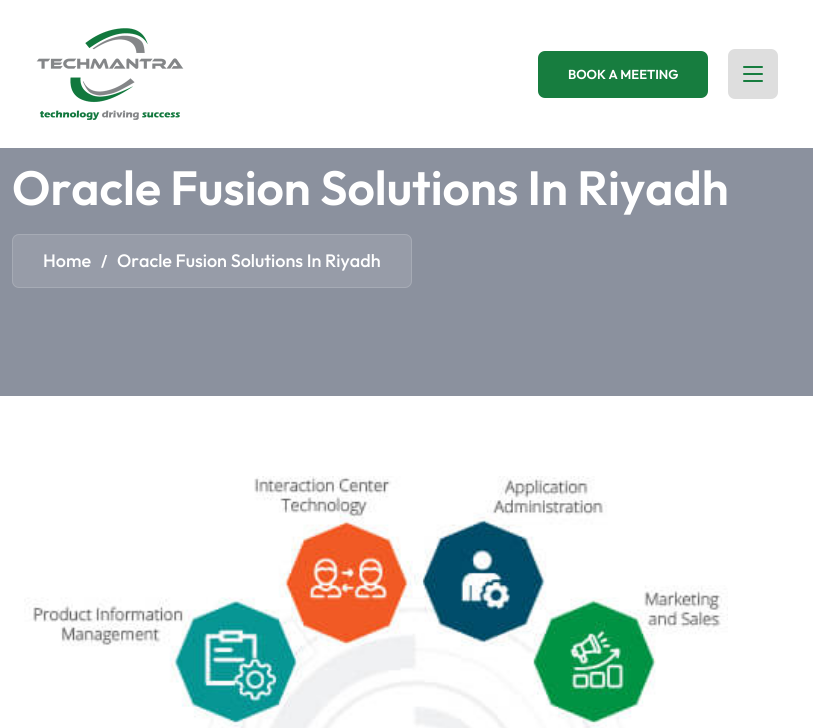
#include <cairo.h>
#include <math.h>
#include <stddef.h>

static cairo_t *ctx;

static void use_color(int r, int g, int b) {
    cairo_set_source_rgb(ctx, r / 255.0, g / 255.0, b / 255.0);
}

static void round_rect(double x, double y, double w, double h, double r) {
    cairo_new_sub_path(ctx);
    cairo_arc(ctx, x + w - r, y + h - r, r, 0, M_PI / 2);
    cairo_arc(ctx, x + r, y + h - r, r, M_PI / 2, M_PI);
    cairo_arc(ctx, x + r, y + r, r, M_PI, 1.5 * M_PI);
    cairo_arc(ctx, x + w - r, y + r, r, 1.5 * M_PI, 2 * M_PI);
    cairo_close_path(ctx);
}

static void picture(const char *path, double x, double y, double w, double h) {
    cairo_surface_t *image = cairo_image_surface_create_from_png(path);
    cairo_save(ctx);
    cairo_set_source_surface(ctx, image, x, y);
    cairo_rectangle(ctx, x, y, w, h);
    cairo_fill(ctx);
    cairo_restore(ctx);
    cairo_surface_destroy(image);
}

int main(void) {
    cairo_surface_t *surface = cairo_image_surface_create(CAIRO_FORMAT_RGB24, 813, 728);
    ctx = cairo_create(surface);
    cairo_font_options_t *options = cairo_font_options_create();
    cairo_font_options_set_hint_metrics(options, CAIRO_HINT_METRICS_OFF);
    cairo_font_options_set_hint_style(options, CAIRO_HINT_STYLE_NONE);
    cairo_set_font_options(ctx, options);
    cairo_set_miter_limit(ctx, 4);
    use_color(255, 255, 255);
    cairo_paint(ctx);
    picture("img1.png", 36, 28, 148, 92);
    use_color(23, 125, 63);
    round_rect(538, 51, 170, 47, 7);
    cairo_fill(ctx);
    cairo_select_font_face(ctx, "Outfit SemiBold", CAIRO_FONT_SLANT_NORMAL, CAIRO_FONT_WEIGHT_NORMAL);
    cairo_set_font_size(ctx, 13);
    use_color(255, 255, 255);
    cairo_move_to(ctx, 568, 79);
    cairo_show_text(ctx, "BOOK A MEETING");
    use_color(222, 222, 222);
    round_rect(728, 49, 50, 50, 7);
    cairo_fill(ctx);
    use_color(23, 125, 63);
    round_rect(743, 66, 20, 2, 1);
    cairo_fill(ctx);
    round_rect(743, 73, 20, 2, 1);
    cairo_fill(ctx);
    round_rect(743, 80, 20, 2, 1);
    cairo_fill(ctx);
    use_color(139, 145, 158);
    cairo_rectangle(ctx, 0, 148, 813, 248);
    cairo_fill(ctx);
    cairo_set_font_size(ctx, 48);
    use_color(255, 255, 255);
    cairo_move_to(ctx, 12, 205);
    cairo_show_text(ctx, "Oracle Fusion Solutions In Riyadh");
    use_color(151, 156, 168);
    round_rect(12, 234, 400, 54, 7);
    cairo_fill(ctx);
    round_rect(12.5, 234.5, 399, 53, 6.5);
    cairo_set_source_rgba(ctx, 1, 1, 1, 0.15);
    cairo_set_line_width(ctx, 1);
    cairo_stroke(ctx);
    cairo_select_font_face(ctx, "Outfit Medium", CAIRO_FONT_SLANT_NORMAL, CAIRO_FONT_WEIGHT_NORMAL);
    cairo_set_font_size(ctx, 18);
    use_color(255, 255, 255);
    cairo_move_to(ctx, 43, 267);
    cairo_show_text(ctx, "Home");
    cairo_select_font_face(ctx, "Outfit SemiBold", CAIRO_FONT_SLANT_NORMAL, CAIRO_FONT_WEIGHT_NORMAL);
    cairo_set_font_size(ctx, 16);
    cairo_move_to(ctx, 101, 267);
    cairo_show_text(ctx, "/");
    cairo_select_font_face(ctx, "Outfit Medium", CAIRO_FONT_SLANT_NORMAL, CAIRO_FONT_WEIGHT_NORMAL);
    cairo_set_font_size(ctx, 18);
    cairo_move_to(ctx, 117, 267);
    cairo_show_text(ctx, "Oracle Fusion Solutions In Riyadh");
    picture("img2.png", 24, 476, 704, 252);
    cairo_surface_write_to_png(surface, "result.png");
    cairo_font_options_destroy(options);
    cairo_destroy(ctx);
    cairo_surface_destroy(surface);
    return 0;
}
